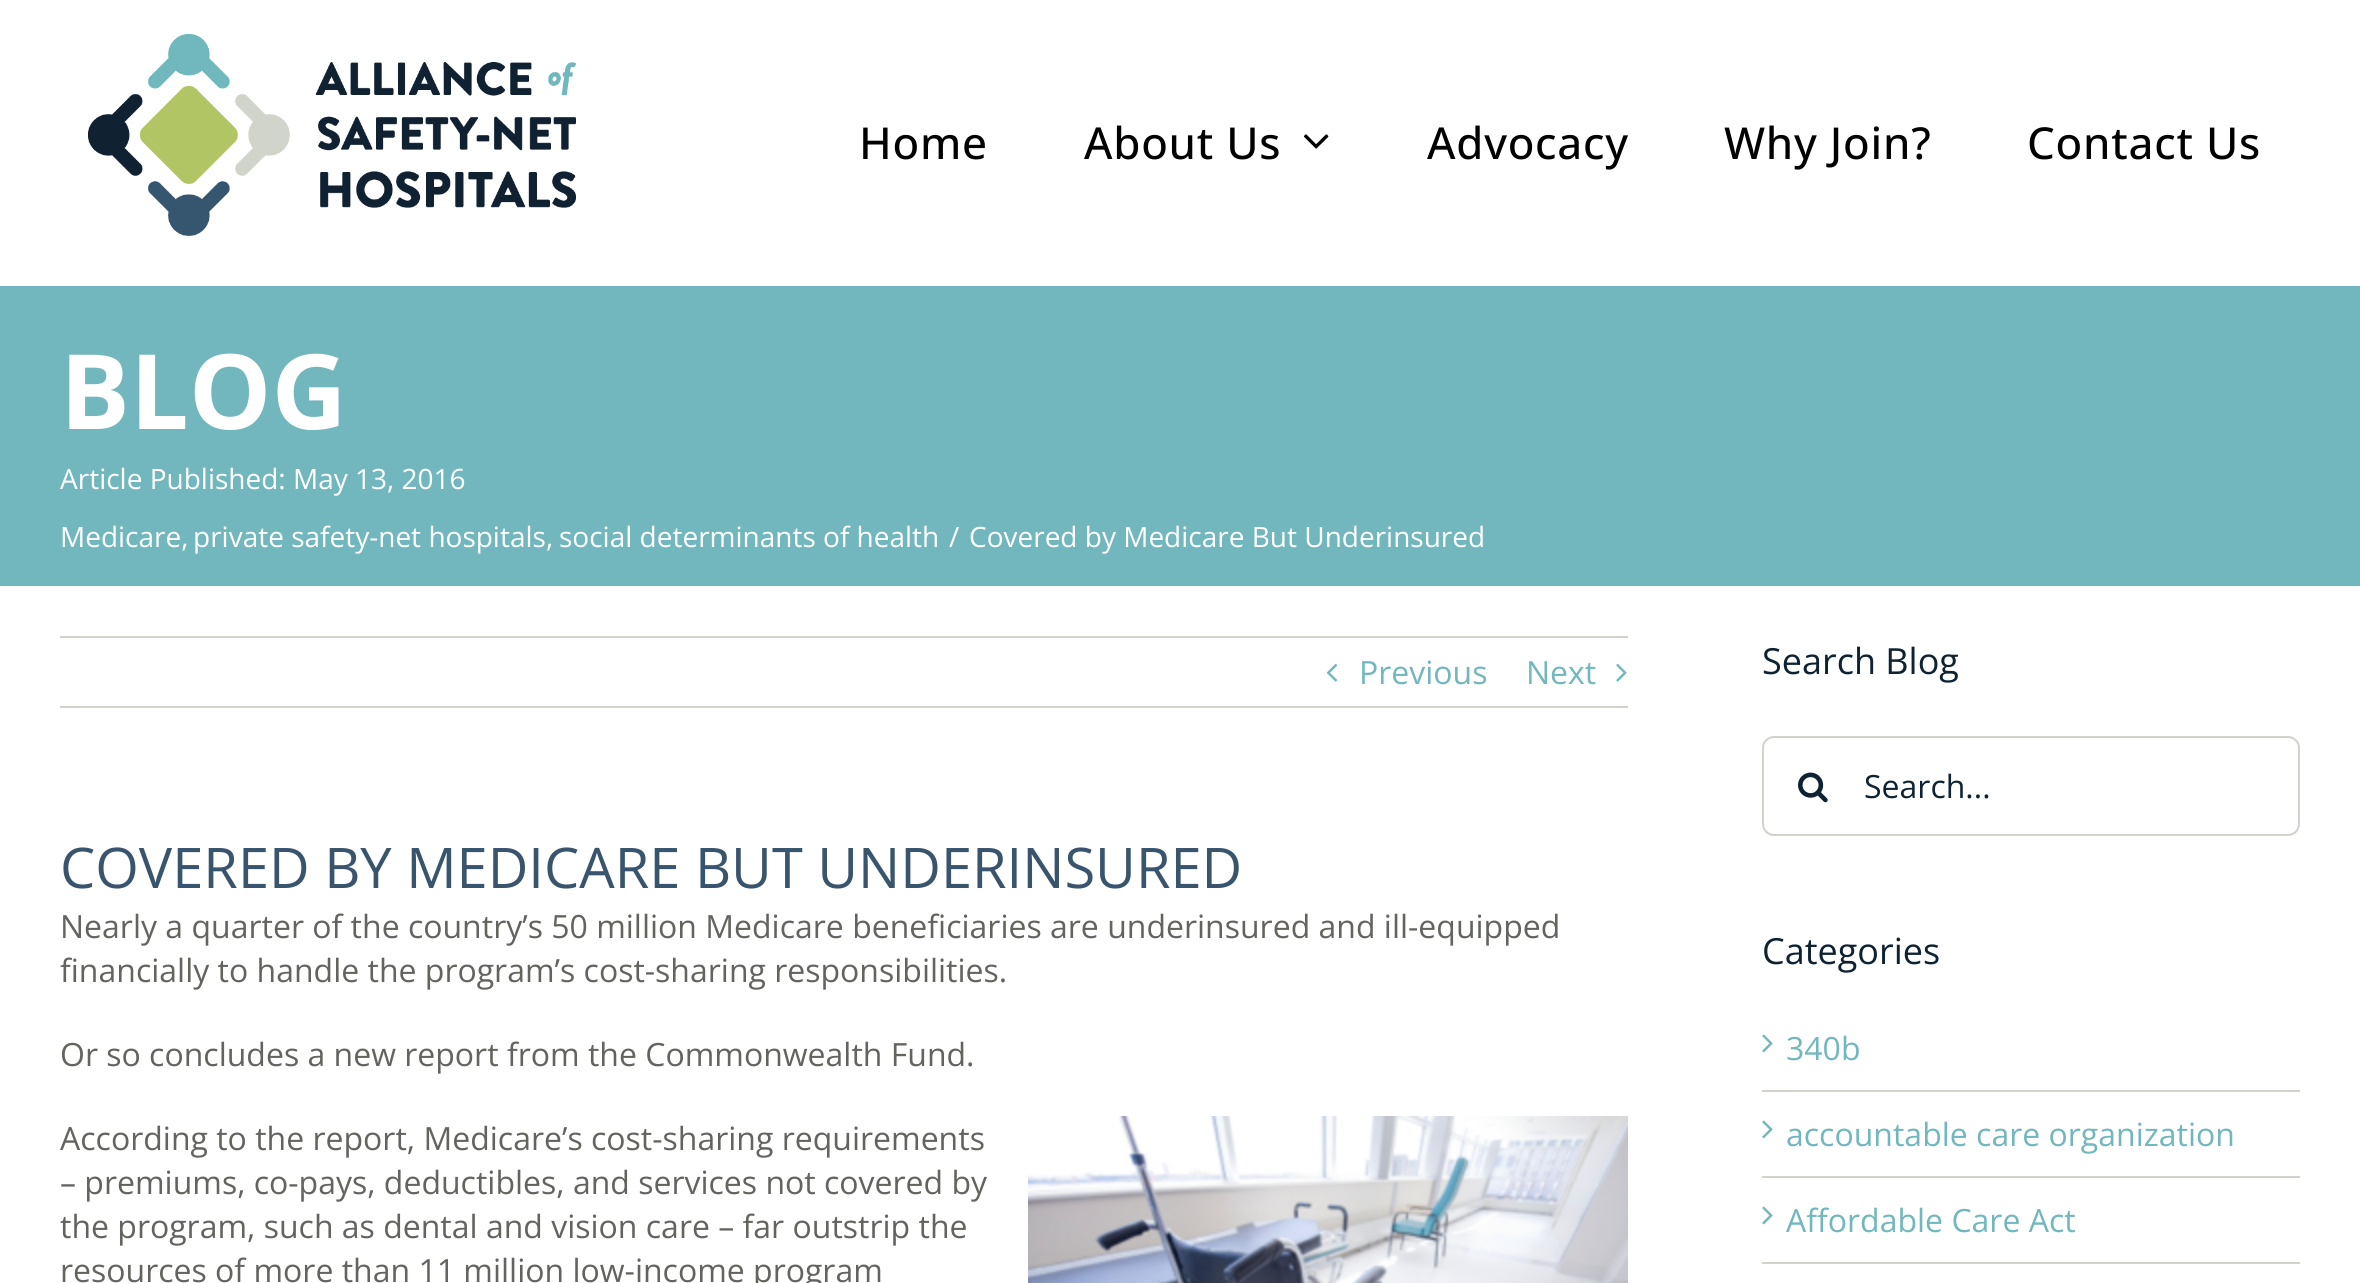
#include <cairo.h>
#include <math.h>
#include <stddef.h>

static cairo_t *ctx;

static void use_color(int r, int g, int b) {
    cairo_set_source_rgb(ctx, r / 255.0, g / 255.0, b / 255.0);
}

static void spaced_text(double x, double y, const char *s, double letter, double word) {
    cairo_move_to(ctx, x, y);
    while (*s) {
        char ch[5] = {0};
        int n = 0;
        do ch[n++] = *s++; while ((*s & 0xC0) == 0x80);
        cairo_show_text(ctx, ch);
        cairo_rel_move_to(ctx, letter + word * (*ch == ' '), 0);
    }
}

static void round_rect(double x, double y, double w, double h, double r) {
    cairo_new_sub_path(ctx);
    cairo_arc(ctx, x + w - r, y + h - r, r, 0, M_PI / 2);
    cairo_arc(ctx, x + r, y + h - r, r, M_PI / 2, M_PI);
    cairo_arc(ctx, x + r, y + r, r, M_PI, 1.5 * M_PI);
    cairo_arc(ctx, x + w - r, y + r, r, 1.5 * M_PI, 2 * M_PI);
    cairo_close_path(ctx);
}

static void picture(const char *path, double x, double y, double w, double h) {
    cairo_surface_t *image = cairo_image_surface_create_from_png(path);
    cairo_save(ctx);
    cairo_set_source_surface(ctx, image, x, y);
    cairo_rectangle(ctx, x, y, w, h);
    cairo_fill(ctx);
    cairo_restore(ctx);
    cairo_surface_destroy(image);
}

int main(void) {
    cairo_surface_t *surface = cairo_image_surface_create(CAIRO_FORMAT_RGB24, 2360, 1283);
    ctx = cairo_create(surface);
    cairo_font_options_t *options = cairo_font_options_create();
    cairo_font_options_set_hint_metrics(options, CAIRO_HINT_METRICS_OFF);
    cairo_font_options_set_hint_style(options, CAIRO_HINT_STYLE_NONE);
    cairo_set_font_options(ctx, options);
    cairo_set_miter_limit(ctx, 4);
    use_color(255, 255, 255);
    cairo_paint(ctx);
    picture("img1.png", 88, 34, 488, 202);
    cairo_select_font_face(ctx, "Open Sans Medium", CAIRO_FONT_SLANT_NORMAL, CAIRO_FONT_WEIGHT_NORMAL);
    cairo_set_font_size(ctx, 44);
    use_color(0, 0, 0);
    spaced_text(859, 159, "Home", 0.75, 0);
    spaced_text(1084, 159, "About Us", 0.75, 0);
    picture("img2.png", 1303, 134, 26, 15);
    spaced_text(1427, 159, "Advocacy", 0.75, 0);
    spaced_text(1724, 159, "Why Join?", 0.75, 0);
    spaced_text(2027, 159, "Contact Us", 0.75, 0);
    use_color(113, 183, 189);
    cairo_rectangle(ctx, 0, 286, 2360, 300);
    cairo_fill(ctx);
    cairo_select_font_face(ctx, "Open Sans", CAIRO_FONT_SLANT_NORMAL, CAIRO_FONT_WEIGHT_BOLD);
    cairo_set_font_size(ctx, 104);
    use_color(255, 255, 255);
    cairo_move_to(ctx, 60, 429);
    cairo_show_text(ctx, "BLOG");
    cairo_select_font_face(ctx, "Open Sans", CAIRO_FONT_SLANT_NORMAL, CAIRO_FONT_WEIGHT_NORMAL);
    cairo_set_font_size(ctx, 28);
    cairo_move_to(ctx, 60, 489);
    cairo_show_text(ctx, "Article Published: May 13, 2016");
    cairo_move_to(ctx, 60, 547);
    cairo_show_text(ctx, "Medicare,");
    cairo_move_to(ctx, 193, 547);
    cairo_show_text(ctx, "private safety-net hospitals,");
    cairo_move_to(ctx, 559, 547);
    cairo_show_text(ctx, "social determinants of health");
    cairo_move_to(ctx, 949, 547);
    cairo_show_text(ctx, "/");
    cairo_move_to(ctx, 969, 547);
    cairo_show_text(ctx, "Covered by Medicare But Underinsured");
    use_color(209, 211, 202);
    cairo_rectangle(ctx, 60, 636, 1568, 2);
    cairo_fill(ctx);
    cairo_rectangle(ctx, 60, 706, 1568, 2);
    cairo_fill(ctx);
    picture("img3.png", 1326, 663, 12, 19);
    cairo_set_font_size(ctx, 32);
    use_color(113, 183, 189);
    cairo_move_to(ctx, 1359, 684);
    cairo_show_text(ctx, "Previous");
    cairo_move_to(ctx, 1526, 684);
    cairo_show_text(ctx, "Next");
    picture("img4.png", 1616, 663, 11, 19);
    cairo_set_font_size(ctx, 56);
    use_color(57, 85, 110);
    cairo_move_to(ctx, 60, 888);
    cairo_show_text(ctx, "COVERED BY MEDICARE BUT UNDERINSURED");
    cairo_set_font_size(ctx, 32);
    use_color(98, 100, 94);
    cairo_move_to(ctx, 60, 938);
    cairo_show_text(ctx, "Nearly a quarter of the country’s 50 million Medicare beneficiaries are underinsured and ill-equipped");
    cairo_move_to(ctx, 60, 982);
    cairo_show_text(ctx, "financially to handle the program’s cost-sharing responsibilities.");
    cairo_move_to(ctx, 60, 1066);
    cairo_show_text(ctx, "Or so concludes a new report from the Commonwealth Fund.");
    cairo_move_to(ctx, 60, 1150);
    cairo_show_text(ctx, "According to the report, Medicare’s cost-sharing requirements");
    picture("img5.png", 1028, 1116, 600, 167);
    cairo_move_to(ctx, 60, 1194);
    cairo_show_text(ctx, "– premiums, co-pays, deductibles, and services not covered by");
    cairo_move_to(ctx, 60, 1238);
    cairo_show_text(ctx, "the program, such as dental and vision care – far outstrip the");
    cairo_move_to(ctx, 60, 1282);
    cairo_show_text(ctx, "resources of more than 11 million low-income program");
    cairo_set_font_size(ctx, 36);
    use_color(15, 34, 50);
    cairo_move_to(ctx, 1762, 674);
    cairo_show_text(ctx, "Search Blog");
    round_rect(1763, 737, 536, 98, 11);
    use_color(209, 211, 202);
    cairo_stroke(ctx);
    picture("img6.png", 1798, 772, 30, 31);
    cairo_set_font_size(ctx, 32);
    use_color(15, 34, 50);
    cairo_move_to(ctx, 1864, 798);
    cairo_show_text(ctx, "Search...");
    cairo_set_font_size(ctx, 36);
    cairo_move_to(ctx, 1762, 964);
    cairo_show_text(ctx, "Categories");
    use_color(209, 211, 202);
    cairo_rectangle(ctx, 1762, 1090, 538, 2);
    cairo_fill(ctx);
    picture("img7.png", 1762, 1034, 11, 19);
    cairo_set_font_size(ctx, 32);
    use_color(113, 183, 189);
    cairo_move_to(ctx, 1786, 1060);
    cairo_show_text(ctx, "340b");
    use_color(209, 211, 202);
    cairo_rectangle(ctx, 1762, 1176, 538, 2);
    cairo_fill(ctx);
    picture("img7.png", 1762, 1120, 11, 19);
    use_color(113, 183, 189);
    cairo_move_to(ctx, 1786, 1146);
    cairo_show_text(ctx, "accountable care organization");
    use_color(209, 211, 202);
    cairo_rectangle(ctx, 1762, 1262, 538, 2);
    cairo_fill(ctx);
    picture("img7.png", 1762, 1206, 11, 19);
    use_color(113, 183, 189);
    cairo_move_to(ctx, 1786, 1232);
    cairo_show_text(ctx, "Affordable Care Act");
    cairo_surface_write_to_png(surface, "result.png");
    cairo_font_options_destroy(options);
    cairo_destroy(ctx);
    cairo_surface_destroy(surface);
    return 0;
}
